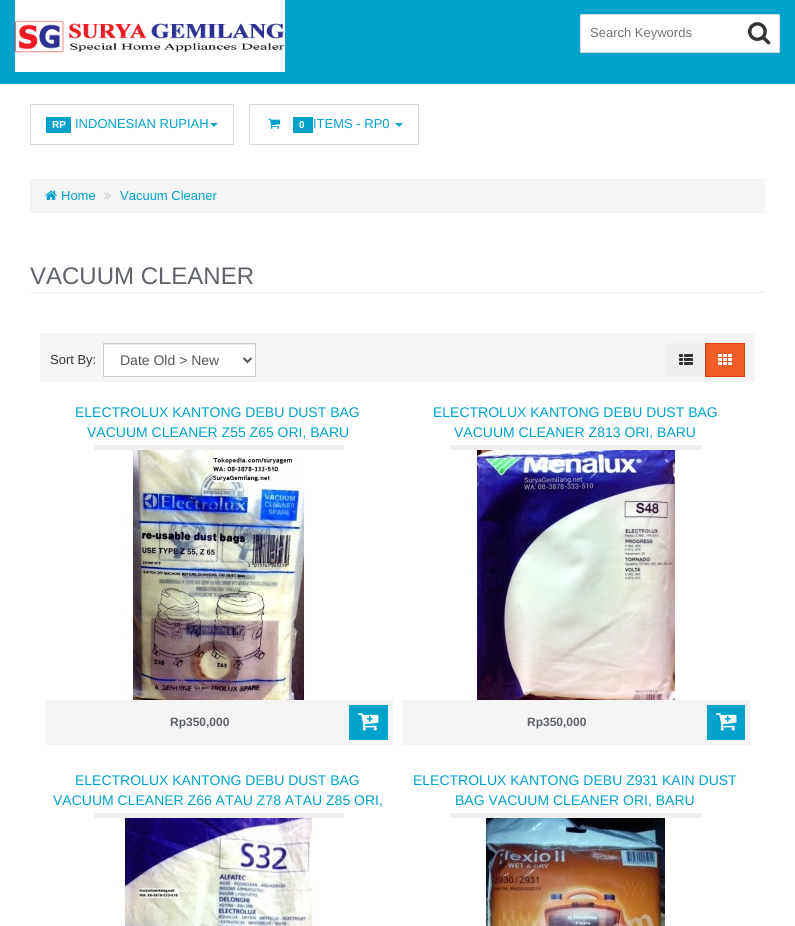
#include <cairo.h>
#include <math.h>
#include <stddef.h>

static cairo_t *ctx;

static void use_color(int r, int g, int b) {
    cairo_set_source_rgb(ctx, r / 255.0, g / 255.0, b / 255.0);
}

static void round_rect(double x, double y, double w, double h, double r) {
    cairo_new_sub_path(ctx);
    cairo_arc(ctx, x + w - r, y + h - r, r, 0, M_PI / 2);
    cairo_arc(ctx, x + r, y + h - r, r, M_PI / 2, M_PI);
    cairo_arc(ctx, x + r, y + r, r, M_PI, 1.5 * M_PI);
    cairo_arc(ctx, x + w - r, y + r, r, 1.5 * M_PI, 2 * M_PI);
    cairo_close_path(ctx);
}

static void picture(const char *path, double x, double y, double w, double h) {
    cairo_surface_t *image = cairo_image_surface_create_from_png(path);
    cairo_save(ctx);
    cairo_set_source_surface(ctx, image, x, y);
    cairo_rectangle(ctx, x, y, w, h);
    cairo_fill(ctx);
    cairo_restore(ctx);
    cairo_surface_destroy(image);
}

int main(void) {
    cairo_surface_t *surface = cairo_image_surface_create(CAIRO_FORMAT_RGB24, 795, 926);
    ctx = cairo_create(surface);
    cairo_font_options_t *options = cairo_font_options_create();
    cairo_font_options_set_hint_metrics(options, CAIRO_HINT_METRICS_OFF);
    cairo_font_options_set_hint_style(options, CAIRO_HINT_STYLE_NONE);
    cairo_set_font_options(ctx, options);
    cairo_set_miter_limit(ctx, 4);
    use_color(255, 255, 255);
    cairo_paint(ctx);
    use_color(0, 161, 203);
    cairo_rectangle(ctx, 0, 0, 795, 84);
    cairo_fill(ctx);
    use_color(255, 255, 255);
    cairo_rectangle(ctx, 15, 0, 270, 72);
    cairo_fill(ctx);
    picture("img1.png", 15, 20, 270, 33);
    round_rect(580.5, 14.5, 199, 38, 0.5);
    cairo_fill_preserve(ctx);
    use_color(215, 216, 218);
    cairo_set_line_width(ctx, 1);
    cairo_stroke(ctx);
    cairo_select_font_face(ctx, "Liberation Sans", CAIRO_FONT_SLANT_NORMAL, CAIRO_FONT_WEIGHT_NORMAL);
    cairo_set_font_size(ctx, 13);
    use_color(117, 117, 117);
    cairo_move_to(ctx, 590, 37);
    cairo_show_text(ctx, "Search Keywords");
    picture("img2.png", 748, 22, 23, 23);
    cairo_rectangle(ctx, 30.5, 104.5, 203, 40);
    use_color(215, 216, 218);
    cairo_stroke(ctx);
    use_color(0, 161, 203);
    cairo_rectangle(ctx, 46, 117, 25, 16);
    cairo_fill(ctx);
    cairo_select_font_face(ctx, "Liberation Sans", CAIRO_FONT_SLANT_NORMAL, CAIRO_FONT_WEIGHT_BOLD);
    cairo_set_font_size(ctx, 10);
    use_color(255, 255, 255);
    cairo_move_to(ctx, 52, 128);
    cairo_show_text(ctx, "RP");
    cairo_select_font_face(ctx, "Liberation Sans", CAIRO_FONT_SLANT_NORMAL, CAIRO_FONT_WEIGHT_NORMAL);
    cairo_set_font_size(ctx, 13);
    use_color(0, 161, 203);
    cairo_move_to(ctx, 75, 128);
    cairo_show_text(ctx, "INDONESIAN RUPIAH");
    cairo_new_path(ctx);
    cairo_move_to(ctx, 210, 123);
    cairo_line_to(ctx, 218, 123);
    cairo_line_to(ctx, 214, 127);
    cairo_close_path(ctx);
    cairo_fill(ctx);
    cairo_rectangle(ctx, 249.5, 104.5, 169, 40);
    use_color(215, 216, 218);
    cairo_stroke(ctx);
    picture("img3.png", 268, 118, 13, 11);
    use_color(0, 161, 203);
    cairo_rectangle(ctx, 293, 117, 20, 16);
    cairo_fill(ctx);
    cairo_select_font_face(ctx, "Liberation Sans", CAIRO_FONT_SLANT_NORMAL, CAIRO_FONT_WEIGHT_BOLD);
    cairo_set_font_size(ctx, 10);
    use_color(255, 255, 255);
    cairo_move_to(ctx, 299, 128);
    cairo_show_text(ctx, "0");
    cairo_select_font_face(ctx, "Liberation Sans", CAIRO_FONT_SLANT_NORMAL, CAIRO_FONT_WEIGHT_NORMAL);
    cairo_set_font_size(ctx, 13);
    use_color(0, 161, 203);
    cairo_move_to(ctx, 313, 128);
    cairo_show_text(ctx, "ITEMS - RP0");
    cairo_new_path(ctx);
    cairo_move_to(ctx, 395, 123);
    cairo_line_to(ctx, 403, 123);
    cairo_line_to(ctx, 399, 127);
    cairo_close_path(ctx);
    cairo_fill(ctx);
    use_color(245, 245, 245);
    cairo_rectangle(ctx, 30, 179, 735, 34);
    cairo_fill(ctx);
    picture("img4.png", 45, 190, 12, 10);
    use_color(0, 161, 203);
    cairo_move_to(ctx, 61, 200);
    cairo_show_text(ctx, "Home");
    picture("img5.png", 104, 192, 7, 8);
    cairo_move_to(ctx, 120, 200);
    cairo_show_text(ctx, "Vacuum Cleaner");
    use_color(239, 239, 239);
    cairo_rectangle(ctx, 30, 292, 735, 1);
    cairo_fill(ctx);
    cairo_set_font_size(ctx, 24);
    use_color(94, 98, 107);
    cairo_move_to(ctx, 30, 284);
    cairo_show_text(ctx, "VACUUM CLEANER");
    use_color(245, 245, 245);
    cairo_rectangle(ctx, 40, 333, 715, 49);
    cairo_fill(ctx);
    cairo_set_font_size(ctx, 13);
    use_color(51, 51, 51);
    cairo_move_to(ctx, 50, 364);
    cairo_show_text(ctx, "Sort By:");
    use_color(255, 255, 255);
    cairo_rectangle(ctx, 104, 345, 151, 31);
    cairo_fill(ctx);
    use_color(236, 236, 236);
    cairo_rectangle(ctx, 104, 344, 151, 1);
    cairo_fill(ctx);
    cairo_rectangle(ctx, 103.5, 343.5, 152, 33);
    use_color(204, 204, 204);
    cairo_stroke(ctx);
    cairo_new_path(ctx);
    cairo_move_to(ctx, 243.5, 358);
    cairo_line_to(ctx, 247.5, 362);
    cairo_line_to(ctx, 251.5, 358);
    use_color(85, 85, 85);
    cairo_set_line_width(ctx, 2);
    cairo_stroke(ctx);
    cairo_set_font_size(ctx, 14);
    cairo_move_to(ctx, 120, 365);
    cairo_show_text(ctx, "Date Old > New");
    use_color(239, 239, 239);
    cairo_rectangle(ctx, 666, 343, 39, 34);
    cairo_fill(ctx);
    picture("img6.png", 679, 354, 14, 11);
    use_color(242, 92, 39);
    cairo_rectangle(ctx, 705.5, 343.5, 39, 33);
    cairo_fill_preserve(ctx);
    use_color(216, 66, 14);
    cairo_set_line_width(ctx, 1);
    cairo_stroke(ctx);
    picture("img7.png", 718, 354, 14, 11);
    use_color(0, 161, 203);
    cairo_move_to(ctx, 75, 417);
    cairo_show_text(ctx, "ELECTROLUX KANTONG DEBU DUST BAG");
    cairo_move_to(ctx, 87, 437);
    cairo_show_text(ctx, "VACUUM CLEANER Z55 Z65 ORI, BARU");
    use_color(239, 239, 239);
    cairo_rectangle(ctx, 94, 445, 250, 5);
    cairo_fill(ctx);
    picture("img8.png", 126, 450, 180, 250);
    use_color(245, 245, 245);
    cairo_rectangle(ctx, 45, 700, 348, 45);
    cairo_fill(ctx);
    cairo_select_font_face(ctx, "Liberation Sans", CAIRO_FONT_SLANT_NORMAL, CAIRO_FONT_WEIGHT_BOLD);
    cairo_set_font_size(ctx, 12);
    use_color(94, 98, 107);
    cairo_move_to(ctx, 170, 726);
    cairo_show_text(ctx, "Rp350,000");
    use_color(0, 161, 203);
    cairo_rectangle(ctx, 349, 705, 39, 35);
    cairo_fill(ctx);
    picture("img9.png", 358, 713, 21, 18);
    cairo_select_font_face(ctx, "Liberation Sans", CAIRO_FONT_SLANT_NORMAL, CAIRO_FONT_WEIGHT_NORMAL);
    cairo_set_font_size(ctx, 14);
    cairo_move_to(ctx, 433, 417);
    cairo_show_text(ctx, "ELECTROLUX KANTONG DEBU DUST BAG");
    cairo_move_to(ctx, 454, 437);
    cairo_show_text(ctx, "VACUUM CLEANER Z813 ORI, BARU");
    use_color(239, 239, 239);
    cairo_rectangle(ctx, 451, 445, 250, 5);
    cairo_fill(ctx);
    picture("img10.png", 467, 450, 209, 250);
    use_color(245, 245, 245);
    cairo_rectangle(ctx, 403, 700, 347, 45);
    cairo_fill(ctx);
    cairo_select_font_face(ctx, "Liberation Sans", CAIRO_FONT_SLANT_NORMAL, CAIRO_FONT_WEIGHT_BOLD);
    cairo_set_font_size(ctx, 12);
    use_color(94, 98, 107);
    cairo_move_to(ctx, 527, 726);
    cairo_show_text(ctx, "Rp350,000");
    use_color(0, 161, 203);
    cairo_rectangle(ctx, 707, 705, 38, 35);
    cairo_fill(ctx);
    picture("img9.png", 716, 713, 21, 18);
    cairo_select_font_face(ctx, "Liberation Sans", CAIRO_FONT_SLANT_NORMAL, CAIRO_FONT_WEIGHT_NORMAL);
    cairo_set_font_size(ctx, 14);
    cairo_move_to(ctx, 75, 785);
    cairo_show_text(ctx, "ELECTROLUX KANTONG DEBU DUST BAG");
    cairo_move_to(ctx, 53, 805);
    cairo_show_text(ctx, "VACUUM CLEANER Z66 ATAU Z78 ATAU Z85 ORI,");
    use_color(239, 239, 239);
    cairo_rectangle(ctx, 94, 813, 250, 5);
    cairo_fill(ctx);
    picture("img11.png", 117, 818, 201, 108);
    use_color(0, 161, 203);
    cairo_move_to(ctx, 413, 785);
    cairo_show_text(ctx, "ELECTROLUX KANTONG DEBU Z931 KAIN DUST");
    cairo_move_to(ctx, 455, 805);
    cairo_show_text(ctx, "BAG VACUUM CLEANER ORI, BARU");
    use_color(239, 239, 239);
    cairo_rectangle(ctx, 451, 813, 250, 5);
    cairo_fill(ctx);
    picture("img12.png", 483, 818, 184, 108);
    cairo_surface_write_to_png(surface, "result.png");
    cairo_font_options_destroy(options);
    cairo_destroy(ctx);
    cairo_surface_destroy(surface);
    return 0;
}
